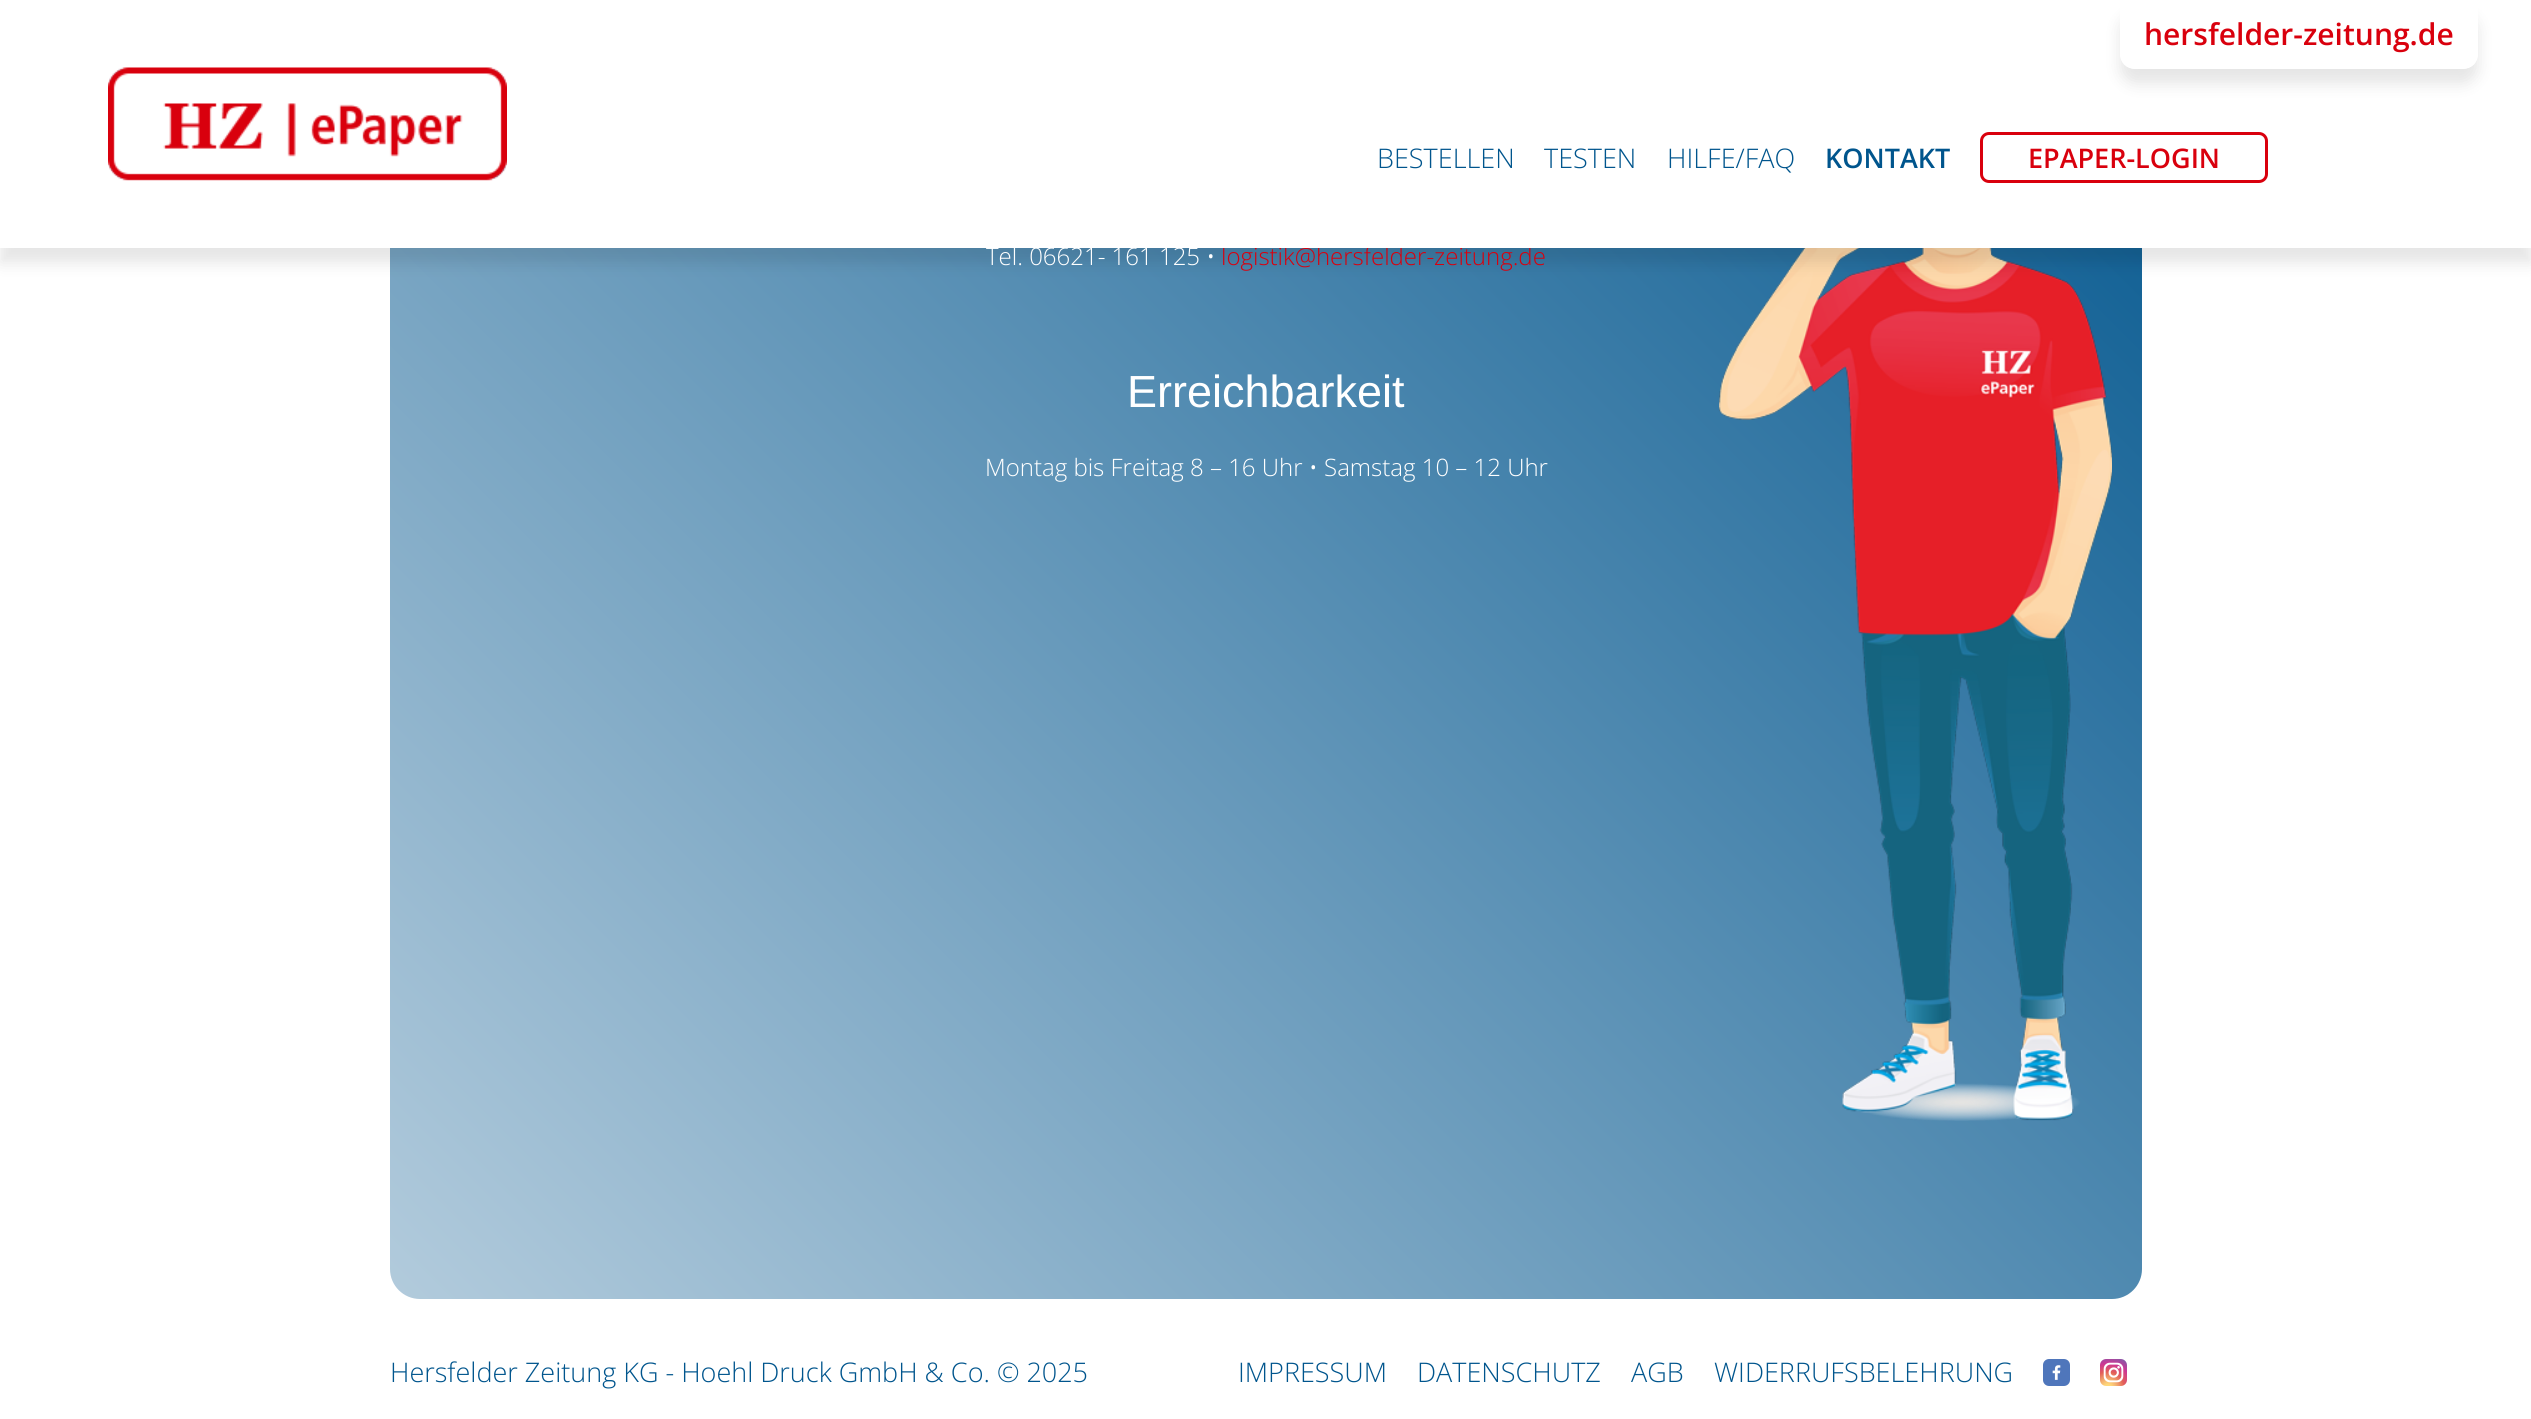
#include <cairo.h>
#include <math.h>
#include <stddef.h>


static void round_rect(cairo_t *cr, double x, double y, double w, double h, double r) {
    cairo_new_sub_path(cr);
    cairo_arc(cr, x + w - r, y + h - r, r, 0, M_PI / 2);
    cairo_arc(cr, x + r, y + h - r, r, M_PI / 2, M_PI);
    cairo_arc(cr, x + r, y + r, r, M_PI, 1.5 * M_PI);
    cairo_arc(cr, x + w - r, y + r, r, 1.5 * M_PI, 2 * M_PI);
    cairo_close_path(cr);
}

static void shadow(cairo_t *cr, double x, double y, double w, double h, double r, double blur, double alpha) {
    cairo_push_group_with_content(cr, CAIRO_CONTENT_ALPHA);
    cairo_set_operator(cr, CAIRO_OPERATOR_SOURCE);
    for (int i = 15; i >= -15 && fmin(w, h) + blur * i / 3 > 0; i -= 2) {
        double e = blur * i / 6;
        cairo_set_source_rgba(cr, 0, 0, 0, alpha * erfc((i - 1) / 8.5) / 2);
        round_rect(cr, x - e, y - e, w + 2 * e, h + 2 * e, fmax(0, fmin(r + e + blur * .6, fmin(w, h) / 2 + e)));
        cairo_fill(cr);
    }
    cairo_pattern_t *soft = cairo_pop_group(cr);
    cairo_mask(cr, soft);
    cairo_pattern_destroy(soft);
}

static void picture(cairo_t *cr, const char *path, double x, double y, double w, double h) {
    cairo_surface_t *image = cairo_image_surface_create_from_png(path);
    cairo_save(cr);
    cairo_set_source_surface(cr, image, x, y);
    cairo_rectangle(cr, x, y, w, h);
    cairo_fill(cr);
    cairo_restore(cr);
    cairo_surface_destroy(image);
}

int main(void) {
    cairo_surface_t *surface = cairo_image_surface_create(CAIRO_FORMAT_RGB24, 2531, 1419);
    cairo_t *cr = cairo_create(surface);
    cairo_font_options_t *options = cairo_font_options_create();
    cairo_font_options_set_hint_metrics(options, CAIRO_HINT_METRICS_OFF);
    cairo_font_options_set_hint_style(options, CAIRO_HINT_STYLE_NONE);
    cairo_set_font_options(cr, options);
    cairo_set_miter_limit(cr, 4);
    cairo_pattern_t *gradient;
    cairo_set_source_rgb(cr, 1, 1, 1);
    cairo_paint(cr);
    gradient = cairo_pattern_create_linear(473, 1382, 2059, -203);
    cairo_pattern_add_color_stop_rgba(gradient, 0, 0.698, 0.796, 0.863, 1);
    cairo_pattern_add_color_stop_rgba(gradient, 1, 0, 0.333, 0.553, 1);
    cairo_set_source(cr, gradient);
    cairo_pattern_destroy(gradient);
    round_rect(cr, 390, -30, 1752, 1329, 30);
    cairo_fill(cr);
    picture(cr, "img2.png", 1719, 248, 393, 873);
    cairo_set_source_rgb(cr, 0, 0, 0);
    shadow(cr, 0, 15, 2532, 248, 0, 7.5, 0.1);
    cairo_select_font_face(cr, "Open Sans Light", CAIRO_FONT_SLANT_NORMAL, CAIRO_FONT_WEIGHT_NORMAL);
    cairo_set_font_size(cr, 24);
    cairo_set_source_rgb(cr, 0.851, 0, 0.051);
    cairo_move_to(cr, 1221, 265);
    cairo_show_text(cr, "logistik@hersfelder-zeitung.de");
    cairo_set_source_rgb(cr, 1, 1, 1);
    cairo_rectangle(cr, 0, 0, 2531, 248);
    cairo_fill(cr);
    cairo_save(cr);
    cairo_set_fill_rule(cr, CAIRO_FILL_RULE_EVEN_ODD);
    cairo_new_path(cr);
    cairo_move_to(cr, 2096, 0);
    cairo_line_to(cr, 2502, 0);
    cairo_line_to(cr, 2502, 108);
    cairo_line_to(cr, 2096, 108);
    cairo_close_path(cr);
    cairo_move_to(cr, 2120, 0);
    cairo_line_to(cr, 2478, 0);
    cairo_line_to(cr, 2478, 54);
    cairo_curve_to(cr, 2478, 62.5, 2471.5, 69, 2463, 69);
    cairo_line_to(cr, 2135, 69);
    cairo_curve_to(cr, 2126.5, 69, 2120, 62.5, 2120, 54);
    cairo_close_path(cr);
    cairo_clip(cr);
    cairo_set_source_rgb(cr, 0, 0, 0);
    shadow(cr, 2120, 15, 358, 69, 15, 7.5, 0.1);
    cairo_restore(cr);
    cairo_select_font_face(cr, "Open Sans SemiBold", CAIRO_FONT_SLANT_NORMAL, CAIRO_FONT_WEIGHT_NORMAL);
    cairo_set_font_size(cr, 30);
    cairo_set_source_rgb(cr, 0.851, 0, 0.051);
    cairo_move_to(cr, 2144, 45);
    cairo_show_text(cr, "hersfelder-zeitung.de");
    picture(cr, "img1.png", 108, 67, 399, 114);
    cairo_select_font_face(cr, "Open Sans Light", CAIRO_FONT_SLANT_NORMAL, CAIRO_FONT_WEIGHT_NORMAL);
    cairo_set_font_size(cr, 27);
    cairo_set_source_rgb(cr, 0, 0.333, 0.553);
    cairo_move_to(cr, 1377, 168);
    cairo_show_text(cr, "BESTELLEN");
    cairo_move_to(cr, 1544, 168);
    cairo_show_text(cr, "TESTEN");
    cairo_move_to(cr, 1667, 168);
    cairo_show_text(cr, "HILFE/FAQ");
    cairo_select_font_face(cr, "Open Sans SemiBold", CAIRO_FONT_SLANT_NORMAL, CAIRO_FONT_WEIGHT_NORMAL);
    cairo_move_to(cr, 1825, 168);
    cairo_show_text(cr, "KONTAKT");
    round_rect(cr, 1981.5, 133.5, 285, 48, 7.5);
    cairo_set_source_rgb(cr, 0.851, 0, 0.051);
    cairo_set_line_width(cr, 3);
    cairo_stroke(cr);
    cairo_move_to(cr, 2028, 168);
    cairo_show_text(cr, "EPAPER-LOGIN");
    cairo_select_font_face(cr, "Open Sans Light", CAIRO_FONT_SLANT_NORMAL, CAIRO_FONT_WEIGHT_NORMAL);
    cairo_set_font_size(cr, 24);
    cairo_set_source_rgb(cr, 1, 1, 1);
    cairo_move_to(cr, 986, 265);
    cairo_show_text(cr, "Tel. 06621- 161 125 •");
    cairo_select_font_face(cr, "Liberation Sans", CAIRO_FONT_SLANT_NORMAL, CAIRO_FONT_WEIGHT_NORMAL);
    cairo_set_font_size(cr, 45);
    cairo_move_to(cr, 1127, 407);
    cairo_show_text(cr, "Erreichbarkeit");
    cairo_select_font_face(cr, "Open Sans Light", CAIRO_FONT_SLANT_NORMAL, CAIRO_FONT_WEIGHT_NORMAL);
    cairo_set_font_size(cr, 24);
    cairo_move_to(cr, 985, 476);
    cairo_show_text(cr, "Montag bis Freitag 8 – 16 Uhr • Samstag 10 – 12 Uhr");
    cairo_set_font_size(cr, 27);
    cairo_set_source_rgb(cr, 0, 0.333, 0.553);
    cairo_move_to(cr, 390, 1382);
    cairo_show_text(cr, "Hersfelder Zeitung KG - Hoehl Druck GmbH & Co. © 2025");
    cairo_move_to(cr, 1238, 1382);
    cairo_show_text(cr, "IMPRESSUM");
    cairo_move_to(cr, 1417, 1382);
    cairo_show_text(cr, "DATENSCHUTZ");
    cairo_move_to(cr, 1631, 1382);
    cairo_show_text(cr, "AGB");
    cairo_move_to(cr, 1714, 1382);
    cairo_show_text(cr, "WIDERRUFSBELEHRUNG");
    picture(cr, "img3.png", 2043, 1359, 27, 27);
    picture(cr, "img4.png", 2100, 1359, 27, 27);
    cairo_surface_write_to_png(surface, "page.png");
    cairo_font_options_destroy(options);
    cairo_destroy(cr);
    cairo_surface_destroy(surface);
    return 0;
}
